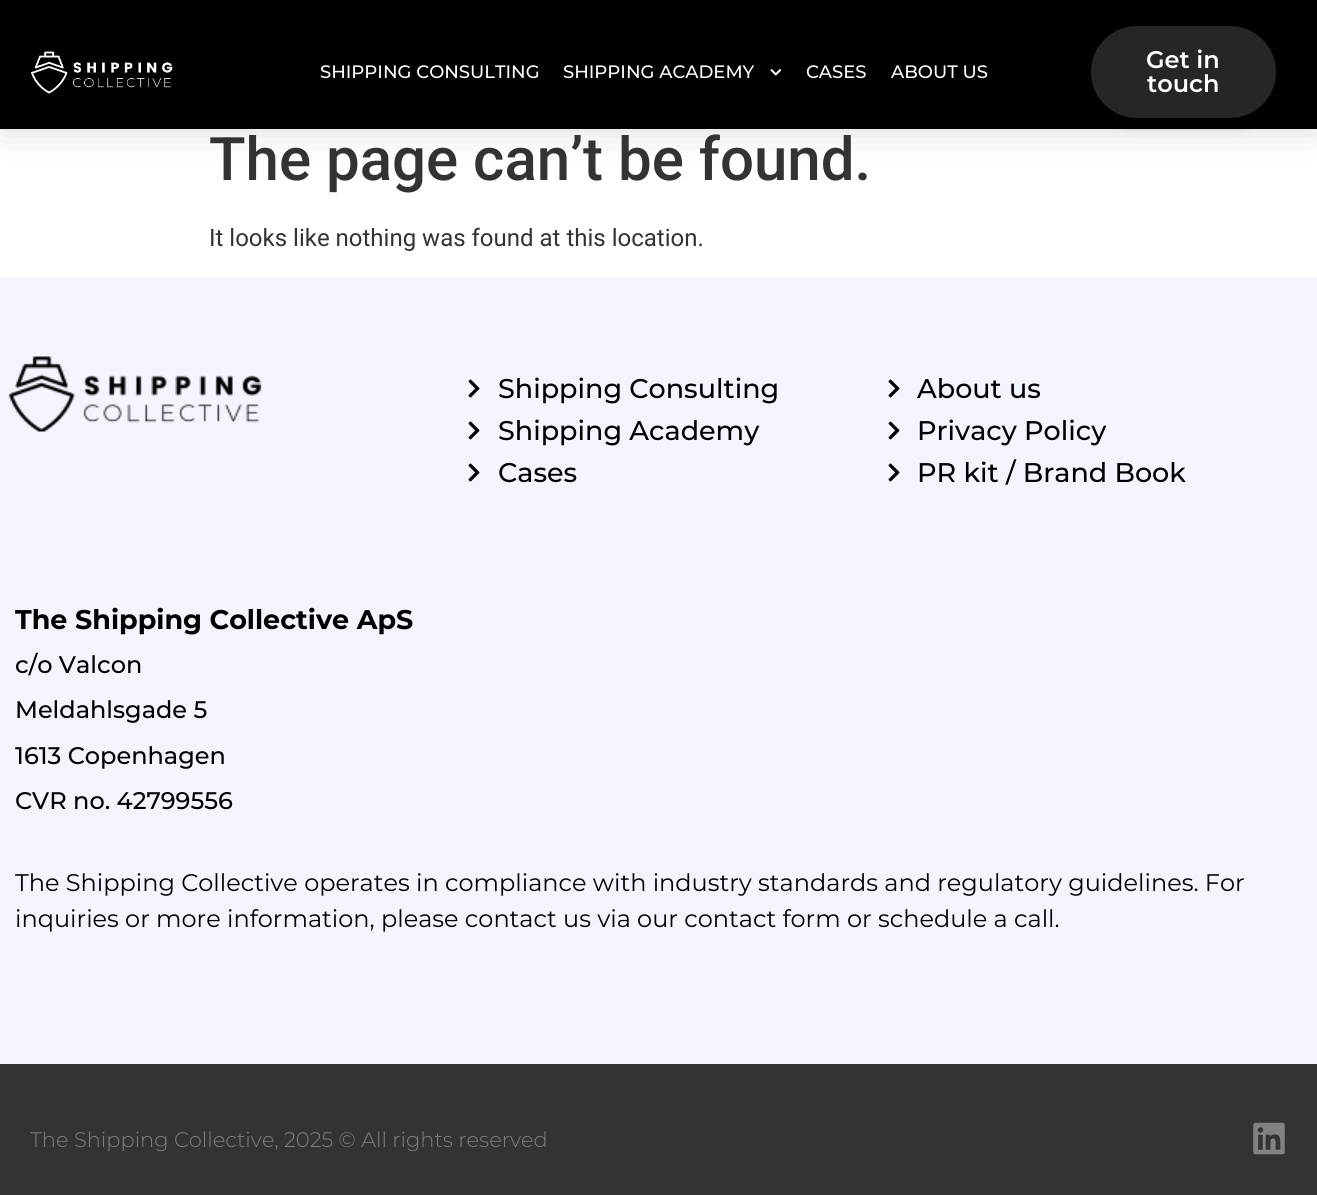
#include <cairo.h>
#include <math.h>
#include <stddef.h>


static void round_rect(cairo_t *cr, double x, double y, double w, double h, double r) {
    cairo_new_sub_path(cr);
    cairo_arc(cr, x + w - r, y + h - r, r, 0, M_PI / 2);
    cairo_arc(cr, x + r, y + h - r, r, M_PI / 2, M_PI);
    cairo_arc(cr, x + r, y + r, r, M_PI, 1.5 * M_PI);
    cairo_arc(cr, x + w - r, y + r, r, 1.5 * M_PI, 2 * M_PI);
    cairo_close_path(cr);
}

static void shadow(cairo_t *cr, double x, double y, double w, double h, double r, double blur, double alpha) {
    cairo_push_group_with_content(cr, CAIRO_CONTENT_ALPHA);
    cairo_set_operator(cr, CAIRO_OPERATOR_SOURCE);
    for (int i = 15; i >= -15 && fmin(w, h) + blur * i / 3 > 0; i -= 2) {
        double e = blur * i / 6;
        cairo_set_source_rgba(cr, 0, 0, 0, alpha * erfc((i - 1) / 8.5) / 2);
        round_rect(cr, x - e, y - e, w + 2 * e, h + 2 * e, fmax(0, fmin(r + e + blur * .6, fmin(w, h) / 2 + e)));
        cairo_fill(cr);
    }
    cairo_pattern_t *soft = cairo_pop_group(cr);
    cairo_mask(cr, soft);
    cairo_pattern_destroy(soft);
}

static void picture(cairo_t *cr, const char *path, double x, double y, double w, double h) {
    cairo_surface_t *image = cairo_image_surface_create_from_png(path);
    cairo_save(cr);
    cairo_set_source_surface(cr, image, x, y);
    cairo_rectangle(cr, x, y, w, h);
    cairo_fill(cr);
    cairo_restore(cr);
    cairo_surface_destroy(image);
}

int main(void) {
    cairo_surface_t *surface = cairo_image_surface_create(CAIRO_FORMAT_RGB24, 1317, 1195);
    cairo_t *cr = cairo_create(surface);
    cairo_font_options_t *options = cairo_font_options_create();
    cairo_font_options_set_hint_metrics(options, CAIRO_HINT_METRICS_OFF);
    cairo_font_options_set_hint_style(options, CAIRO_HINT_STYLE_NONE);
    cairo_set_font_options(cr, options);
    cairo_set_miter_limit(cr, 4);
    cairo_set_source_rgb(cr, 1, 1, 1);
    cairo_paint(cr);
    cairo_set_source_rgb(cr, 0, 0, 0);
    shadow(cr, 0, 0, 1317, 129, 0, 18, 0.15);
    cairo_set_source_rgb(cr, 0, 0, 0);
    cairo_rectangle(cr, 0, 0, 1317, 129);
    cairo_fill(cr);
    picture(cr, "img1.png", 30, 51, 143, 43);
    cairo_select_font_face(cr, "Montserrat Medium", CAIRO_FONT_SLANT_NORMAL, CAIRO_FONT_WEIGHT_NORMAL);
    cairo_set_font_size(cr, 18);
    cairo_set_source_rgb(cr, 1, 1, 1);
    cairo_move_to(cr, 320, 78);
    cairo_show_text(cr, "SHIPPING CONSULTING");
    cairo_move_to(cr, 563, 78);
    cairo_show_text(cr, "SHIPPING ACADEMY");
    picture(cr, "img2.png", 770, 69, 12, 7);
    cairo_move_to(cr, 806, 78);
    cairo_show_text(cr, "CASES");
    cairo_move_to(cr, 891, 78);
    cairo_show_text(cr, "ABOUT US");
    cairo_set_source_rgb(cr, 0, 0, 0);
    shadow(cr, 1089, 24, 189, 96, 48, 7.5, 0.5);
    cairo_set_source_rgb(cr, 0.145, 0.153, 0.153);
    round_rect(cr, 1090, 25, 187, 94, 47);
    cairo_fill_preserve(cr);
    cairo_set_source_rgb(cr, 0, 0, 0);
    cairo_stroke(cr);
    cairo_select_font_face(cr, "Montserrat SemiBold", CAIRO_FONT_SLANT_NORMAL, CAIRO_FONT_WEIGHT_NORMAL);
    cairo_set_font_size(cr, 24);
    cairo_set_source_rgb(cr, 1, 1, 1);
    cairo_move_to(cr, 1146, 68);
    cairo_show_text(cr, "Get in");
    cairo_move_to(cr, 1147, 92);
    cairo_show_text(cr, "touch");
    cairo_select_font_face(cr, "Roboto Medium", CAIRO_FONT_SLANT_NORMAL, CAIRO_FONT_WEIGHT_NORMAL);
    cairo_set_font_size(cr, 60);
    cairo_set_source_rgb(cr, 0.2, 0.2, 0.2);
    cairo_move_to(cr, 209, 180);
    cairo_show_text(cr, "The page can’t be found.");
    cairo_select_font_face(cr, "Roboto", CAIRO_FONT_SLANT_NORMAL, CAIRO_FONT_WEIGHT_NORMAL);
    cairo_set_font_size(cr, 24);
    cairo_move_to(cr, 209, 246);
    cairo_show_text(cr, "It looks like nothing was found at this location.");
    cairo_set_source_rgb(cr, 0.957, 0.957, 1);
    cairo_rectangle(cr, 0, 278, 1317, 786);
    cairo_fill(cr);
    picture(cr, "img3.png", 8, 356, 254, 76);
    picture(cr, "img4.png", 468, 379, 12, 19);
    cairo_select_font_face(cr, "Montserrat Medium", CAIRO_FONT_SLANT_NORMAL, CAIRO_FONT_WEIGHT_NORMAL);
    cairo_set_font_size(cr, 27);
    cairo_set_source_rgb(cr, 0, 0, 0);
    cairo_move_to(cr, 498, 398);
    cairo_show_text(cr, "Shipping Consulting");
    picture(cr, "img4.png", 468, 421, 12, 19);
    cairo_move_to(cr, 498, 440);
    cairo_show_text(cr, "Shipping Academy");
    picture(cr, "img4.png", 468, 463, 12, 19);
    cairo_move_to(cr, 498, 482);
    cairo_show_text(cr, "Cases");
    picture(cr, "img4.png", 888, 379, 12, 19);
    cairo_move_to(cr, 917, 398);
    cairo_show_text(cr, "About us");
    picture(cr, "img4.png", 888, 421, 12, 19);
    cairo_move_to(cr, 917, 440);
    cairo_show_text(cr, "Privacy Policy");
    picture(cr, "img4.png", 888, 463, 12, 19);
    cairo_move_to(cr, 917, 482);
    cairo_show_text(cr, "PR kit / Brand Book");
    cairo_select_font_face(cr, "Montserrat", CAIRO_FONT_SLANT_NORMAL, CAIRO_FONT_WEIGHT_BOLD);
    cairo_move_to(cr, 15, 629);
    cairo_show_text(cr, "The Shipping Collective ApS");
    cairo_select_font_face(cr, "Montserrat Medium", CAIRO_FONT_SLANT_NORMAL, CAIRO_FONT_WEIGHT_NORMAL);
    cairo_set_font_size(cr, 24);
    cairo_move_to(cr, 15, 673);
    cairo_show_text(cr, "c/o Valcon");
    cairo_move_to(cr, 15, 718);
    cairo_show_text(cr, "Meldahlsgade 5");
    cairo_move_to(cr, 15, 764);
    cairo_show_text(cr, "1613 Copenhagen");
    cairo_move_to(cr, 15, 809);
    cairo_show_text(cr, "CVR no. 42799556");
    cairo_select_font_face(cr, "Montserrat", CAIRO_FONT_SLANT_NORMAL, CAIRO_FONT_WEIGHT_NORMAL);
    cairo_move_to(cr, 15, 891);
    cairo_show_text(cr, "The Shipping Collective operates in compliance with industry standards and regulatory guidelines. For");
    cairo_move_to(cr, 15, 927);
    cairo_show_text(cr, "inquiries or more information, please contact us via our contact form or schedule a call.");
    cairo_set_source_rgb(cr, 0.2, 0.2, 0.2);
    cairo_rectangle(cr, 0, 1064, 1317, 131);
    cairo_fill(cr);
    cairo_select_font_face(cr, "Montserrat Light", CAIRO_FONT_SLANT_NORMAL, CAIRO_FONT_WEIGHT_NORMAL);
    cairo_set_font_size(cr, 21);
    cairo_set_source_rgb(cr, 0.494, 0.494, 0.494);
    cairo_move_to(cr, 30, 1147);
    cairo_show_text(cr, "The Shipping Collective, 2025 © All rights reserved");
    picture(cr, "img5.png", 1253, 1122, 32, 33);
    cairo_surface_write_to_png(surface, "page.png");
    cairo_font_options_destroy(options);
    cairo_destroy(cr);
    cairo_surface_destroy(surface);
    return 0;
}
